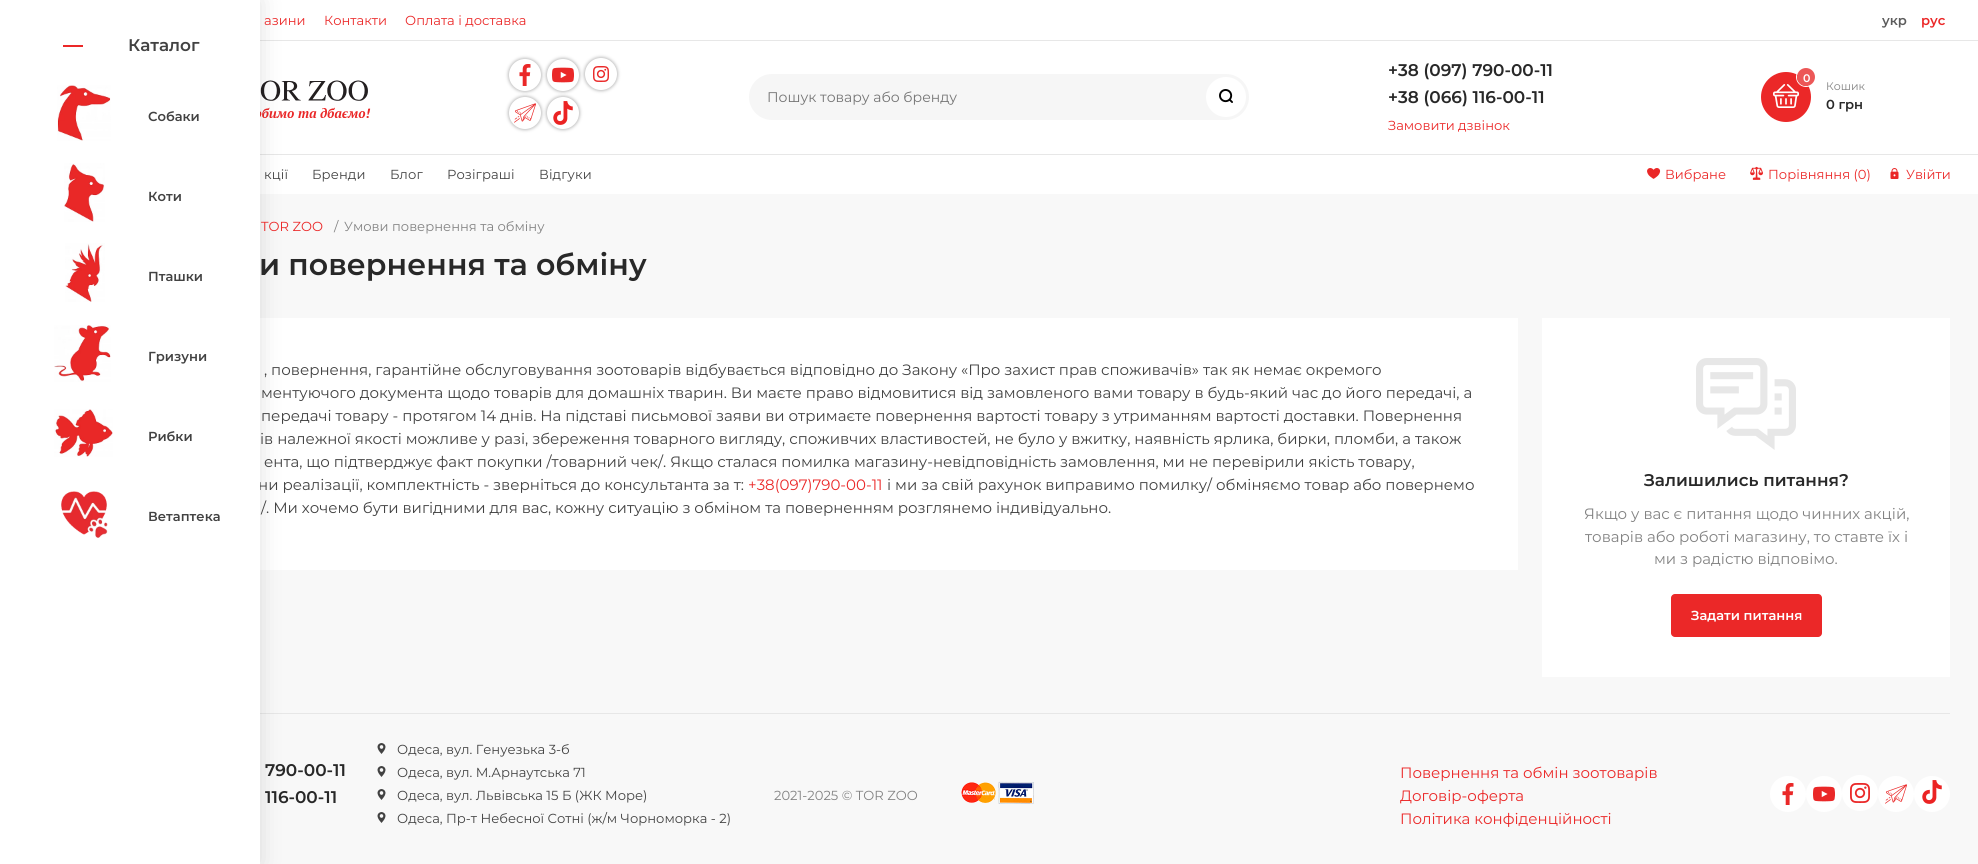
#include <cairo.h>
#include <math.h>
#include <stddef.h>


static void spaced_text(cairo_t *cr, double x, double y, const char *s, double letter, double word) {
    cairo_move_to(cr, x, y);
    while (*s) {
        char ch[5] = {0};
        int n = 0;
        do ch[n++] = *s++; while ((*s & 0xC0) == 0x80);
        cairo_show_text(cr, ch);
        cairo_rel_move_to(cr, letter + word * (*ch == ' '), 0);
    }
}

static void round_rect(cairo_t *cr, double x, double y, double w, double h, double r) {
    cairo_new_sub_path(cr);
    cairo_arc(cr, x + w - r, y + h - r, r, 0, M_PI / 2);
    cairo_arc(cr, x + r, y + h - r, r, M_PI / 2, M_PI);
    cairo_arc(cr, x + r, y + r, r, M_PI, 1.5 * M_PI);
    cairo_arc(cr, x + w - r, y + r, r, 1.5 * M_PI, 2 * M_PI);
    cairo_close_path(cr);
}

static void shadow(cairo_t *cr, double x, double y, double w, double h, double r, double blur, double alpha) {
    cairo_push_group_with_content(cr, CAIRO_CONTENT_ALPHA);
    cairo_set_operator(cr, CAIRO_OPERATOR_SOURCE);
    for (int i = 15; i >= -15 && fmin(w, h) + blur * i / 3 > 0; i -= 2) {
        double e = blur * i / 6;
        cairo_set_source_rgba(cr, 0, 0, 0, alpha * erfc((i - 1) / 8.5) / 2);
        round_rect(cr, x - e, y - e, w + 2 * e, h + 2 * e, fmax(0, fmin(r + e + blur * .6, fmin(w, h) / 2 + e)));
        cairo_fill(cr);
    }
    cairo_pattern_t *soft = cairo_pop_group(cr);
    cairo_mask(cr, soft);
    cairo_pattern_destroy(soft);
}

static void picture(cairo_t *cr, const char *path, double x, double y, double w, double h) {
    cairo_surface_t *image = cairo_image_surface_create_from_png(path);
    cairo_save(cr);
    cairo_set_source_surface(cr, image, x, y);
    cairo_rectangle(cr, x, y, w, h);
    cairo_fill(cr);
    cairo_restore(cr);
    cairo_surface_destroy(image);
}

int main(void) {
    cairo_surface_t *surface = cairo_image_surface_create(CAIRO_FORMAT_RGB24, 1978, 864);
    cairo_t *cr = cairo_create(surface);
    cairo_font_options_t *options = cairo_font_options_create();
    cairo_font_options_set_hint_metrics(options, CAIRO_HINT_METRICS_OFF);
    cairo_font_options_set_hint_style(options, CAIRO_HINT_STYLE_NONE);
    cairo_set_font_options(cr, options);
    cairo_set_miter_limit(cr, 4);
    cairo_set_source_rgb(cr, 0.969, 0.969, 0.969);
    cairo_paint(cr);
    cairo_set_source_rgb(cr, 1, 1, 1);
    cairo_rectangle(cr, 260, 0, 1718, 194);
    cairo_fill(cr);
    cairo_set_source_rgb(cr, 0.906, 0.906, 0.906);
    cairo_rectangle(cr, 260, 40, 1718, 1);
    cairo_fill(cr);
    cairo_rectangle(cr, 260, 154, 1718, 1);
    cairo_fill(cr);
    picture(cr, "img7.png", 260, 80, 111, 38);
    cairo_set_source_rgb(cr, 1, 1, 1);
    cairo_rectangle(cr, 260, 318, 1258, 252);
    cairo_fill(cr);
    cairo_set_source_rgb(cr, 0.906, 0.906, 0.906);
    cairo_rectangle(cr, 260, 713, 1690, 1);
    cairo_fill(cr);
    cairo_set_source_rgb(cr, 0, 0, 0);
    shadow(cr, 0, 0, 260, 864, 0, 12, 0.12);
    cairo_select_font_face(cr, "Montserrat", CAIRO_FONT_SLANT_NORMAL, CAIRO_FONT_WEIGHT_NORMAL);
    cairo_set_font_size(cr, 15);
    cairo_set_source_rgb(cr, 0.259, 0.259, 0.259);
    cairo_move_to(cr, 258, 490);
    cairo_show_text(cr, "ни реалізації, комплектність - зверніться до консультанта за т:");
    cairo_set_source_rgb(cr, 1, 1, 1);
    cairo_rectangle(cr, 0, 0, 260, 864);
    cairo_fill(cr);
    cairo_set_source_rgb(cr, 0.918, 0.157, 0.157);
    cairo_rectangle(cr, 63, 45, 20, 2);
    cairo_fill(cr);
    cairo_select_font_face(cr, "Montserrat SemiBold", CAIRO_FONT_SLANT_NORMAL, CAIRO_FONT_WEIGHT_NORMAL);
    cairo_set_font_size(cr, 16.9);
    cairo_set_source_rgb(cr, 0.259, 0.259, 0.259);
    cairo_move_to(cr, 128, 51);
    cairo_show_text(cr, "Каталог");
    picture(cr, "img1.png", 57, 85, 54, 56);
    cairo_set_font_size(cr, 13.1);
    cairo_move_to(cr, 148, 121);
    cairo_show_text(cr, "Собаки");
    picture(cr, "img2.png", 64, 163, 41, 59);
    cairo_move_to(cr, 148, 201);
    cairo_show_text(cr, "Коти");
    picture(cr, "img3.png", 65, 243, 40, 59);
    cairo_move_to(cr, 148, 281);
    cairo_show_text(cr, "Пташки");
    picture(cr, "img4.png", 54, 325, 57, 57);
    cairo_move_to(cr, 148, 361);
    cairo_show_text(cr, "Гризуни");
    picture(cr, "img5.png", 54, 409, 59, 48);
    cairo_move_to(cr, 148, 441);
    cairo_show_text(cr, "Рибки");
    picture(cr, "img6.png", 61, 491, 47, 47);
    cairo_move_to(cr, 148, 521);
    cairo_show_text(cr, "Ветаптека");
    cairo_select_font_face(cr, "Montserrat", CAIRO_FONT_SLANT_NORMAL, CAIRO_FONT_WEIGHT_NORMAL);
    cairo_set_source_rgb(cr, 0.918, 0.157, 0.157);
    cairo_move_to(cr, 264, 25);
    cairo_show_text(cr, "азини");
    cairo_move_to(cr, 324, 25);
    cairo_show_text(cr, "Контакти");
    cairo_move_to(cr, 405, 25);
    cairo_show_text(cr, "Оплата і доставка");
    cairo_select_font_face(cr, "Montserrat SemiBold", CAIRO_FONT_SLANT_NORMAL, CAIRO_FONT_WEIGHT_NORMAL);
    cairo_set_source_rgb(cr, 0.361, 0.361, 0.361);
    cairo_move_to(cr, 1882, 25);
    cairo_show_text(cr, "укр");
    cairo_set_source_rgb(cr, 0.918, 0.157, 0.157);
    cairo_move_to(cr, 1921, 25);
    cairo_show_text(cr, "рус");
    cairo_set_source_rgb(cr, 0.749, 0.749, 0.749);
    shadow(cr, 508, 58, 34, 34, 17, 1.5, 1);
    cairo_set_source_rgb(cr, 1, 1, 1);
    cairo_arc(cr, 525, 75, 16, 0, 2 * M_PI);
    cairo_fill(cr);
    picture(cr, "img8.png", 519, 64, 12, 22);
    cairo_set_source_rgb(cr, 0.749, 0.749, 0.749);
    shadow(cr, 546, 58, 34, 34, 17, 1.5, 1);
    cairo_set_source_rgb(cr, 1, 1, 1);
    cairo_arc(cr, 563, 75, 16, 0, 2 * M_PI);
    cairo_fill(cr);
    picture(cr, "img9.png", 552, 67, 22, 16);
    cairo_set_source_rgb(cr, 0.749, 0.749, 0.749);
    shadow(cr, 584, 57, 34, 34, 17, 1.5, 1);
    cairo_set_source_rgb(cr, 1, 1, 1);
    cairo_arc(cr, 601, 74, 16, 0, 2 * M_PI);
    cairo_fill(cr);
    picture(cr, "img10.png", 593, 66, 16, 16);
    cairo_set_source_rgb(cr, 0.749, 0.749, 0.749);
    shadow(cr, 508, 96, 34, 34, 17, 1.5, 1);
    cairo_set_source_rgb(cr, 1, 1, 1);
    cairo_arc(cr, 525, 113, 16, 0, 2 * M_PI);
    cairo_fill(cr);
    picture(cr, "img11.png", 514, 103, 22, 20);
    cairo_set_source_rgb(cr, 0.749, 0.749, 0.749);
    shadow(cr, 546, 96, 34, 34, 17, 1.5, 1);
    cairo_set_source_rgb(cr, 1, 1, 1);
    cairo_arc(cr, 563, 113, 16, 0, 2 * M_PI);
    cairo_fill(cr);
    picture(cr, "img12.png", 553, 101, 20, 24);
    cairo_set_source_rgb(cr, 0.961, 0.961, 0.961);
    round_rect(cr, 749, 74, 500, 46, 23);
    cairo_fill(cr);
    cairo_select_font_face(cr, "Montserrat", CAIRO_FONT_SLANT_NORMAL, CAIRO_FONT_WEIGHT_NORMAL);
    cairo_set_font_size(cr, 14);
    cairo_set_source_rgb(cr, 0.459, 0.459, 0.459);
    cairo_move_to(cr, 767, 102);
    cairo_show_text(cr, "Пошук товару або бренду");
    cairo_set_source_rgb(cr, 1, 1, 1);
    cairo_new_path(cr);
    cairo_arc(cr, 1226, 97, 20, 0, 2 * M_PI);
    cairo_fill(cr);
    picture(cr, "img13.png", 1219, 89, 14, 14);
    cairo_select_font_face(cr, "Montserrat SemiBold", CAIRO_FONT_SLANT_NORMAL, CAIRO_FONT_WEIGHT_NORMAL);
    cairo_set_font_size(cr, 16.9);
    cairo_set_source_rgb(cr, 0.157, 0.157, 0.157);
    cairo_move_to(cr, 1388, 76);
    cairo_show_text(cr, "+38 (097) 790-00-11");
    cairo_move_to(cr, 1388, 103);
    cairo_show_text(cr, "+38 (066) 116-00-11");
    cairo_select_font_face(cr, "Montserrat", CAIRO_FONT_SLANT_NORMAL, CAIRO_FONT_WEIGHT_NORMAL);
    cairo_set_font_size(cr, 13.1);
    cairo_set_source_rgb(cr, 0.918, 0.157, 0.157);
    cairo_move_to(cr, 1388, 130);
    cairo_show_text(cr, "Замовити дзвінок");
    cairo_new_path(cr);
    cairo_arc(cr, 1786, 97, 25, 0, 2 * M_PI);
    cairo_fill(cr);
    picture(cr, "img14.png", 1773, 84, 26, 24);
    cairo_arc(cr, 1806, 77, 9.5, 0, 2 * M_PI);
    cairo_set_source_rgb(cr, 1, 1, 1);
    cairo_set_line_width(cr, 1);
    cairo_stroke(cr);
    cairo_set_source_rgb(cr, 0.922, 0.341, 0.341);
    cairo_arc(cr, 1806, 77, 9, 0, 2 * M_PI);
    cairo_fill(cr);
    cairo_select_font_face(cr, "Montserrat SemiBold", CAIRO_FONT_SLANT_NORMAL, CAIRO_FONT_WEIGHT_NORMAL);
    cairo_set_font_size(cr, 11);
    cairo_set_source_rgb(cr, 1, 1, 1);
    cairo_move_to(cr, 1803, 82);
    cairo_show_text(cr, "0");
    cairo_select_font_face(cr, "Montserrat", CAIRO_FONT_SLANT_NORMAL, CAIRO_FONT_WEIGHT_NORMAL);
    cairo_set_source_rgb(cr, 0.51, 0.51, 0.51);
    cairo_move_to(cr, 1826, 90);
    cairo_show_text(cr, "Кошик");
    cairo_select_font_face(cr, "Montserrat SemiBold", CAIRO_FONT_SLANT_NORMAL, CAIRO_FONT_WEIGHT_NORMAL);
    cairo_set_font_size(cr, 13.1);
    cairo_set_source_rgb(cr, 0.157, 0.157, 0.157);
    cairo_move_to(cr, 1826, 109);
    cairo_show_text(cr, "0 грн");
    cairo_select_font_face(cr, "Montserrat", CAIRO_FONT_SLANT_NORMAL, CAIRO_FONT_WEIGHT_NORMAL);
    cairo_set_source_rgb(cr, 0.259, 0.259, 0.259);
    spaced_text(cr, 264, 179, "кції", 0.1, 0);
    spaced_text(cr, 312, 179, "Бренди", 0.1, 0);
    spaced_text(cr, 390, 179, "Блог", 0.1, 0);
    spaced_text(cr, 447, 179, "Розіграші", 0.1, 0);
    spaced_text(cr, 539, 179, "Відгуки", 0.1, 0);
    picture(cr, "img15.png", 1647, 168, 14, 11);
    cairo_set_source_rgb(cr, 0.918, 0.157, 0.157);
    cairo_move_to(cr, 1665, 179);
    cairo_show_text(cr, "Вибране");
    picture(cr, "img16.png", 1750, 166, 13, 14);
    cairo_move_to(cr, 1768, 179);
    cairo_show_text(cr, "Порівняння (0)");
    picture(cr, "img17.png", 1890, 168, 9, 11);
    cairo_move_to(cr, 1906, 179);
    cairo_show_text(cr, "Увійти");
    cairo_move_to(cr, 261, 231);
    cairo_show_text(cr, "TOR ZOO");
    cairo_set_source_rgb(cr, 0.51, 0.51, 0.51);
    cairo_move_to(cr, 334, 231);
    cairo_show_text(cr, "/");
    cairo_move_to(cr, 344, 231);
    cairo_show_text(cr, "Умови повернення та обміну");
    cairo_select_font_face(cr, "Montserrat SemiBold", CAIRO_FONT_SLANT_NORMAL, CAIRO_FONT_WEIGHT_NORMAL);
    cairo_set_font_size(cr, 30);
    cairo_set_source_rgb(cr, 0.157, 0.157, 0.157);
    cairo_move_to(cr, 259, 275);
    cairo_show_text(cr, "и повернення та обміну");
    cairo_select_font_face(cr, "Montserrat", CAIRO_FONT_SLANT_NORMAL, CAIRO_FONT_WEIGHT_NORMAL);
    cairo_set_font_size(cr, 15);
    cairo_set_source_rgb(cr, 0.259, 0.259, 0.259);
    cairo_move_to(cr, 264, 375);
    cairo_show_text(cr, ", повернення, гарантійне обслуговування зоотоварів відбувається відповідно до Закону «Про захист прав споживачів» так як немає окремого");
    cairo_move_to(cr, 261, 398);
    cairo_show_text(cr, "ментуючого документа щодо товарів для домашніх тварин. Ви маєте право відмовитися від замовленого вами товару в будь-який час до його передачі, а");
    cairo_move_to(cr, 261, 421);
    cairo_show_text(cr, "передачі товару - протягом 14 днів. На підставі письмової заяви ви отримаєте повернення вартості товару з утриманням вартості доставки. Повернення");
    cairo_move_to(cr, 260, 444);
    cairo_show_text(cr, "ів належної якості можливе у разі, збереження товарного вигляду, споживчих властивостей, не було у вжитку, наявність ярлика, бирки, пломби, а також");
    cairo_move_to(cr, 264, 467);
    cairo_show_text(cr, "ента, що підтверджує факт покупки /товарний чек/. Якщо сталася помилка магазину-невідповідність замовлення, ми не перевірили якість товару,");
    cairo_set_source_rgb(cr, 0.918, 0.157, 0.157);
    cairo_move_to(cr, 748, 490);
    cairo_show_text(cr, "+38(097)790-00-11");
    cairo_set_source_rgb(cr, 0.259, 0.259, 0.259);
    cairo_move_to(cr, 887, 490);
    cairo_show_text(cr, "і ми за свій рахунок виправимо помилку/ обміняємо товар або повернемо");
    cairo_move_to(cr, 261, 513);
    cairo_show_text(cr, "/. Ми хочемо бути вигідними для вас, кожну ситуацію з обміном та поверненням розглянемо індивідуально.");
    cairo_set_source_rgb(cr, 1, 1, 1);
    cairo_rectangle(cr, 1542, 318, 408, 359);
    cairo_fill(cr);
    picture(cr, "img18.png", 1696, 358, 100, 92);
    cairo_select_font_face(cr, "Montserrat SemiBold", CAIRO_FONT_SLANT_NORMAL, CAIRO_FONT_WEIGHT_NORMAL);
    cairo_set_font_size(cr, 16.9);
    cairo_set_source_rgb(cr, 0.157, 0.157, 0.157);
    cairo_move_to(cr, 1644, 486);
    cairo_show_text(cr, "Залишились питання?");
    cairo_select_font_face(cr, "Montserrat", CAIRO_FONT_SLANT_NORMAL, CAIRO_FONT_WEIGHT_NORMAL);
    cairo_set_font_size(cr, 15);
    cairo_set_source_rgb(cr, 0.51, 0.51, 0.51);
    cairo_move_to(cr, 1584, 519);
    cairo_show_text(cr, "Якщо у вас є питання щодо чинних акцій,");
    cairo_move_to(cr, 1585, 542);
    cairo_show_text(cr, "товарів або роботі магазину, то ставте їх і");
    cairo_move_to(cr, 1654, 564);
    cairo_show_text(cr, "ми з радістю відповімо.");
    cairo_set_source_rgb(cr, 0.918, 0.157, 0.157);
    round_rect(cr, 1671, 594, 151, 43, 4);
    cairo_fill(cr);
    cairo_select_font_face(cr, "Montserrat SemiBold", CAIRO_FONT_SLANT_NORMAL, CAIRO_FONT_WEIGHT_NORMAL);
    cairo_set_font_size(cr, 13.1);
    cairo_set_source_rgb(cr, 1, 1, 1);
    cairo_move_to(cr, 1691, 620);
    cairo_show_text(cr, "Задати питання");
    cairo_set_font_size(cr, 16.9);
    cairo_set_source_rgb(cr, 0.157, 0.157, 0.157);
    cairo_move_to(cr, 265, 776);
    cairo_show_text(cr, "790-00-11");
    cairo_move_to(cr, 265, 803);
    cairo_show_text(cr, "116-00-11");
    picture(cr, "img19.png", 377, 743, 9, 11);
    cairo_select_font_face(cr, "Montserrat", CAIRO_FONT_SLANT_NORMAL, CAIRO_FONT_WEIGHT_NORMAL);
    cairo_set_font_size(cr, 13.1);
    cairo_set_source_rgb(cr, 0.259, 0.259, 0.259);
    cairo_move_to(cr, 397, 754);
    cairo_show_text(cr, "Одеса, вул. Генуезька 3-б");
    picture(cr, "img19.png", 377, 766, 9, 11);
    cairo_move_to(cr, 397, 777);
    cairo_show_text(cr, "Одеса, вул. М.Арнаутська 71");
    picture(cr, "img19.png", 377, 789, 9, 11);
    cairo_move_to(cr, 397, 800);
    cairo_show_text(cr, "Одеса, вул. Львівська 15 Б (ЖК Море)");
    picture(cr, "img19.png", 377, 812, 9, 11);
    cairo_move_to(cr, 397, 823);
    cairo_show_text(cr, "Одеса, Пр-т Небесної Сотні (ж/м Чорноморка - 2)");
    cairo_set_source_rgb(cr, 0.51, 0.51, 0.51);
    cairo_move_to(cr, 774, 800);
    cairo_show_text(cr, "2021-2025 © TOR ZOO");
    picture(cr, "img20.png", 961, 781, 73, 23);
    cairo_set_font_size(cr, 15);
    cairo_set_source_rgb(cr, 0.918, 0.157, 0.157);
    cairo_move_to(cr, 1400, 778);
    cairo_show_text(cr, "Повернення та обмін зоотоварів");
    cairo_move_to(cr, 1400, 801);
    cairo_show_text(cr, "Договір-оферта");
    cairo_move_to(cr, 1400, 824);
    cairo_show_text(cr, "Політика конфіденційності");
    cairo_set_source_rgb(cr, 1, 1, 1);
    cairo_new_path(cr);
    cairo_arc(cr, 1788, 794, 18, 0, 2 * M_PI);
    cairo_fill(cr);
    picture(cr, "img8.png", 1782, 783, 12, 22);
    cairo_arc(cr, 1824, 794, 18, 0, 2 * M_PI);
    cairo_fill(cr);
    picture(cr, "img9.png", 1813, 786, 22, 16);
    cairo_arc(cr, 1860, 793, 18, 0, 2 * M_PI);
    cairo_fill(cr);
    picture(cr, "img21.png", 1850, 783, 20, 20);
    cairo_arc(cr, 1896, 794, 18, 0, 2 * M_PI);
    cairo_fill(cr);
    picture(cr, "img11.png", 1885, 784, 22, 20);
    cairo_arc(cr, 1932, 794, 18, 0, 2 * M_PI);
    cairo_fill(cr);
    picture(cr, "img12.png", 1922, 780, 20, 24);
    cairo_surface_write_to_png(surface, "page.png");
    cairo_font_options_destroy(options);
    cairo_destroy(cr);
    cairo_surface_destroy(surface);
    return 0;
}
